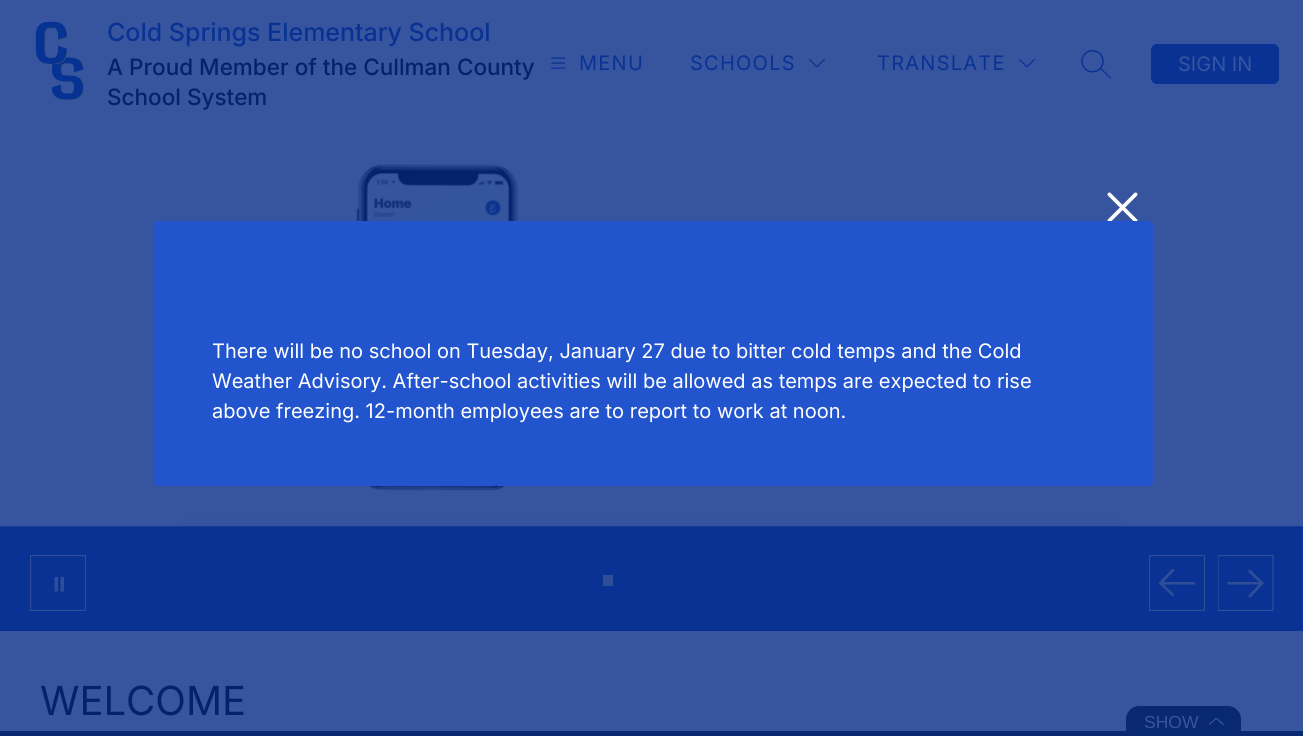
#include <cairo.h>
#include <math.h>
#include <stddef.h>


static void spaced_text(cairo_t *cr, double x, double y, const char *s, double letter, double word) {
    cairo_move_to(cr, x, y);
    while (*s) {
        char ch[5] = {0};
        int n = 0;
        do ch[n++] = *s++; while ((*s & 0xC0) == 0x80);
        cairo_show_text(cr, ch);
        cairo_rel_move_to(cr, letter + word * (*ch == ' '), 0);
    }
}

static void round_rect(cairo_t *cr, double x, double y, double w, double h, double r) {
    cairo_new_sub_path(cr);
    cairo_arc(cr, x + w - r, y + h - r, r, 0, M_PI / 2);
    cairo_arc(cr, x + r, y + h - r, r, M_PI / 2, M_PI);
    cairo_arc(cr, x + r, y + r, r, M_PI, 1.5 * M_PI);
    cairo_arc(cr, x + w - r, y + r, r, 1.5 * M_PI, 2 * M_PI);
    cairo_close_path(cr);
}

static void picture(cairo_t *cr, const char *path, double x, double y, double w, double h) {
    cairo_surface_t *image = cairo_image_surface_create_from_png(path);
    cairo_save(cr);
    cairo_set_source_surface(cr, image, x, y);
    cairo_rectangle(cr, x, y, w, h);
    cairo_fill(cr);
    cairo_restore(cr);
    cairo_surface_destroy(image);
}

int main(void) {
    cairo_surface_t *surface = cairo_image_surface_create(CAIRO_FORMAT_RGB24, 1303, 736);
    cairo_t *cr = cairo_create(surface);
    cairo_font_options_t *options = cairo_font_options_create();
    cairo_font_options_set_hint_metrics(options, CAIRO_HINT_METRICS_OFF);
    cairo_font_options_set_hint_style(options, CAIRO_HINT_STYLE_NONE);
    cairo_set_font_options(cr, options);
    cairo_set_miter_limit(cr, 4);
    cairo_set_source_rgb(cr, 0.212, 0.333, 0.62);
    cairo_paint(cr);
    picture(cr, "img1.png", 35, 21, 49, 79);
    cairo_select_font_face(cr, "Inter Medium", CAIRO_FONT_SLANT_NORMAL, CAIRO_FONT_WEIGHT_NORMAL);
    cairo_set_font_size(cr, 25);
    cairo_set_source_rgb(cr, 0.039, 0.196, 0.58);
    cairo_move_to(cr, 107, 41);
    cairo_show_text(cr, "Cold Springs Elementary School");
    cairo_set_font_size(cr, 22.5);
    cairo_set_source_rgb(cr, 0.012, 0.133, 0.42);
    cairo_move_to(cr, 107, 75);
    cairo_show_text(cr, "A Proud Member of the Cullman County");
    cairo_move_to(cr, 107, 105);
    cairo_show_text(cr, "School System");
    picture(cr, "img2.png", 551, 57, 14, 12);
    cairo_select_font_face(cr, "Inter", CAIRO_FONT_SLANT_NORMAL, CAIRO_FONT_WEIGHT_NORMAL);
    cairo_set_font_size(cr, 20);
    cairo_set_source_rgb(cr, 0.039, 0.196, 0.58);
    spaced_text(cr, 579, 70, "MENU", 1.25, 0);
    spaced_text(cr, 690, 70, "SCHOOLS", 1.25, 0);
    picture(cr, "img3.png", 808, 58, 17, 10);
    spaced_text(cr, 877, 70, "TRANSLATE", 1.25, 0);
    picture(cr, "img3.png", 1018, 58, 17, 10);
    picture(cr, "img4.png", 1081, 50, 30, 29);
    round_rect(cr, 1151.5, 44.5, 127, 39, 5.5);
    cairo_fill_preserve(cr);
    cairo_set_line_width(cr, 1);
    cairo_stroke(cr);
    cairo_set_source_rgb(cr, 0.212, 0.333, 0.62);
    cairo_move_to(cr, 1178, 71);
    cairo_show_text(cr, "SIGN IN");
    cairo_set_source_rgb(cr, 0.039, 0.196, 0.58);
    cairo_rectangle(cr, 0, 526, 1303, 105);
    cairo_fill(cr);
    picture(cr, "img6.png", 0, 123, 1303, 404);
    picture(cr, "img5.png", 1107, 192, 31, 29);
    cairo_set_source_rgb(cr, 0.133, 0.329, 0.808);
    round_rect(cr, 153, 221, 1000, 265, 5);
    cairo_fill(cr);
    cairo_set_source_rgb(cr, 1, 1, 1);
    cairo_move_to(cr, 212, 358);
    cairo_show_text(cr, "There will be no school on Tuesday, January 27 due to bitter cold temps and the Cold");
    cairo_move_to(cr, 212, 388);
    cairo_show_text(cr, "Weather Advisory. After-school activities will be allowed as temps are expected to rise");
    cairo_move_to(cr, 212, 418);
    cairo_show_text(cr, "above freezing. 12-month employees are to report to work at noon.");
    cairo_save(cr);
    cairo_rectangle(cr, 30, 555, 56, 56);
    cairo_clip(cr);
    cairo_new_path(cr);
    cairo_move_to(cr, 30.5, 555.5);
    cairo_line_to(cr, 85.5, 555.5);
    cairo_line_to(cr, 85.5, 610.5);
    cairo_line_to(cr, 30.5, 610.5);
    cairo_close_path(cr);
    cairo_set_source_rgb(cr, 0.188, 0.306, 0.596);
    cairo_set_line_width(cr, 1.2);
    cairo_stroke(cr);
    cairo_restore(cr);
    cairo_set_source_rgb(cr, 0.188, 0.306, 0.596);
    cairo_set_fill_rule(cr, CAIRO_FILL_RULE_EVEN_ODD);
    cairo_new_path(cr);
    cairo_move_to(cr, 58, 577);
    cairo_line_to(cr, 54.5, 577);
    cairo_line_to(cr, 54.5, 591.5);
    cairo_line_to(cr, 58, 591.5);
    cairo_close_path(cr);
    cairo_move_to(cr, 64, 577);
    cairo_line_to(cr, 60.5, 577);
    cairo_line_to(cr, 60.5, 591.5);
    cairo_line_to(cr, 64, 591.5);
    cairo_close_path(cr);
    cairo_fill(cr);
    cairo_rectangle(cr, 603, 575, 10, 11);
    cairo_fill(cr);
    cairo_save(cr);
    cairo_set_fill_rule(cr, CAIRO_FILL_RULE_WINDING);
    cairo_rectangle(cr, 1149, 555, 56, 56);
    cairo_clip(cr);
    cairo_new_path(cr);
    cairo_move_to(cr, 1204.5, 610.5);
    cairo_line_to(cr, 1149.5, 610.5);
    cairo_line_to(cr, 1149.5, 555.5);
    cairo_line_to(cr, 1204.5, 555.5);
    cairo_close_path(cr);
    cairo_set_line_width(cr, 1.2);
    cairo_stroke(cr);
    cairo_restore(cr);
    cairo_set_fill_rule(cr, CAIRO_FILL_RULE_WINDING);
    cairo_new_path(cr);
    cairo_move_to(cr, 1172.5, 596.5);
    cairo_line_to(cr, 1158.5, 583);
    cairo_line_to(cr, 1172.5, 568.5);
    cairo_line_to(cr, 1174.5, 570.5);
    cairo_line_to(cr, 1163.5, 582);
    cairo_line_to(cr, 1195, 582);
    cairo_line_to(cr, 1195, 584.5);
    cairo_line_to(cr, 1163.5, 584.5);
    cairo_line_to(cr, 1174.5, 594.5);
    cairo_close_path(cr);
    cairo_fill(cr);
    cairo_save(cr);
    cairo_rectangle(cr, 1218, 555, 56, 56);
    cairo_clip(cr);
    cairo_new_path(cr);
    cairo_move_to(cr, 1218, 555.5);
    cairo_line_to(cr, 1273, 555.5);
    cairo_line_to(cr, 1273, 610.5);
    cairo_line_to(cr, 1218, 610.5);
    cairo_close_path(cr);
    cairo_set_line_width(cr, 1.2);
    cairo_stroke(cr);
    cairo_restore(cr);
    cairo_new_path(cr);
    cairo_move_to(cr, 1250, 569.5);
    cairo_line_to(cr, 1264, 583);
    cairo_line_to(cr, 1250, 598);
    cairo_line_to(cr, 1248, 596);
    cairo_line_to(cr, 1259, 584.5);
    cairo_line_to(cr, 1227.5, 584.5);
    cairo_line_to(cr, 1227.5, 582);
    cairo_line_to(cr, 1259, 582);
    cairo_line_to(cr, 1248, 571.5);
    cairo_close_path(cr);
    cairo_fill(cr);
    cairo_set_font_size(cr, 40);
    cairo_set_source_rgb(cr, 0.012, 0.133, 0.42);
    cairo_move_to(cr, 40, 715);
    cairo_show_text(cr, "WELCOME");
    cairo_set_source_rgb(cr, 0.039, 0.157, 0.447);
    cairo_rectangle(cr, 0, 731, 1303, 5);
    cairo_fill(cr);
    cairo_new_path(cr);
    cairo_move_to(cr, 1139, 706);
    cairo_line_to(cr, 1228, 706);
    cairo_curve_to(cr, 1235, 706, 1241, 712, 1241, 719);
    cairo_line_to(cr, 1241, 736);
    cairo_line_to(cr, 1126, 736);
    cairo_line_to(cr, 1126, 719);
    cairo_curve_to(cr, 1126, 712, 1132, 706, 1139, 706);
    cairo_close_path(cr);
    cairo_fill(cr);
    cairo_select_font_face(cr, "Liberation Sans", CAIRO_FONT_SLANT_NORMAL, CAIRO_FONT_WEIGHT_NORMAL);
    cairo_set_font_size(cr, 17.5);
    cairo_set_source_rgb(cr, 0.212, 0.333, 0.62);
    cairo_move_to(cr, 1144, 728);
    cairo_show_text(cr, "SHOW");
    picture(cr, "img7.png", 1209, 718, 15, 7);
    cairo_surface_write_to_png(surface, "page.png");
    cairo_font_options_destroy(options);
    cairo_destroy(cr);
    cairo_surface_destroy(surface);
    return 0;
}
